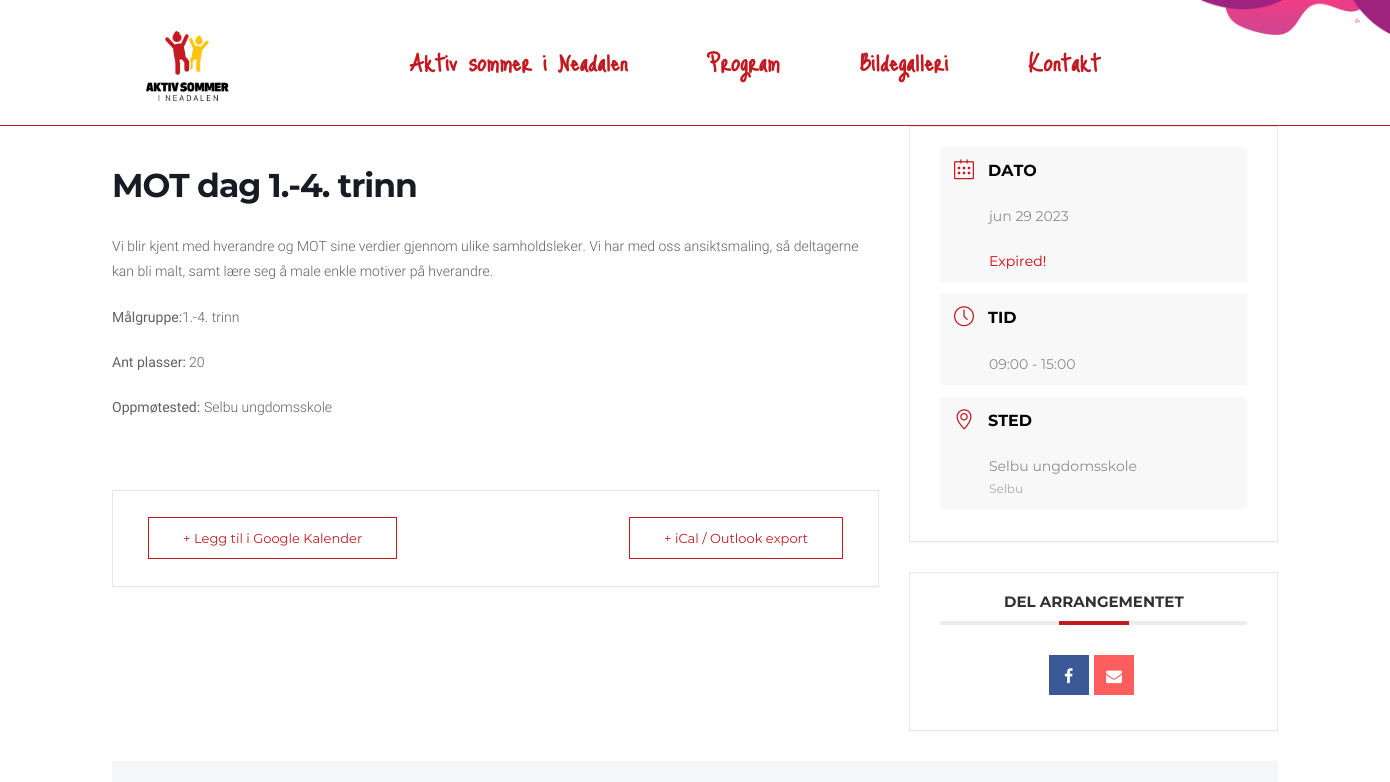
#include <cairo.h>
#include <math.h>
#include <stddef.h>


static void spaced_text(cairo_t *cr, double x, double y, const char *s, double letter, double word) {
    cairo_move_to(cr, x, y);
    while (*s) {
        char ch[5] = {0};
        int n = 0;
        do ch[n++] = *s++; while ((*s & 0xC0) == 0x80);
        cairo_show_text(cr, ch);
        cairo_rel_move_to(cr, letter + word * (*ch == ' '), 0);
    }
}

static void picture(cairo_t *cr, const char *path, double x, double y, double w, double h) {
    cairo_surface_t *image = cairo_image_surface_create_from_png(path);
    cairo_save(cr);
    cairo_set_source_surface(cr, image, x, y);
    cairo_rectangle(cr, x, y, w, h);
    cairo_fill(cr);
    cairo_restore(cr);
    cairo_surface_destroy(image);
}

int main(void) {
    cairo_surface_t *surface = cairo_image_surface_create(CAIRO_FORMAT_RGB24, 1390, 782);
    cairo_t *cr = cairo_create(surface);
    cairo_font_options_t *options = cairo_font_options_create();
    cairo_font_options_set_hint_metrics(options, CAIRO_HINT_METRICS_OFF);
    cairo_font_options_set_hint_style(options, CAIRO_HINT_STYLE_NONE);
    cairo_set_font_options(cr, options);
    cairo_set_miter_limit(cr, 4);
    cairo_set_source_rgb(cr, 1, 1, 1);
    cairo_paint(cr);
    cairo_set_source_rgb(cr, 0.761, 0.102, 0.125);
    cairo_rectangle(cr, 0, 125, 1390, 1);
    cairo_fill(cr);
    picture(cr, "img1.png", 1201, 0, 189, 35);
    picture(cr, "img2.png", 146, 30, 83, 72);
    cairo_select_font_face(cr, "Just Me Again Down Here", CAIRO_FONT_SLANT_NORMAL, CAIRO_FONT_WEIGHT_BOLD);
    cairo_set_font_size(cr, 29);
    cairo_move_to(cr, 410, 71);
    cairo_show_text(cr, "Aktiv sommer i Neadalen");
    cairo_move_to(cr, 707, 71);
    cairo_show_text(cr, "Program");
    cairo_move_to(cr, 860, 71);
    cairo_show_text(cr, "Bildegalleri");
    cairo_move_to(cr, 1028, 71);
    cairo_show_text(cr, "Kontakt");
    cairo_select_font_face(cr, "Montserrat", CAIRO_FONT_SLANT_NORMAL, CAIRO_FONT_WEIGHT_BOLD);
    cairo_set_font_size(cr, 33);
    cairo_set_source_rgb(cr, 0.09, 0.11, 0.141);
    spaced_text(cr, 112, 197, "MOT dag 1.-4. trinn", -1, 0);
    cairo_select_font_face(cr, "Roboto Light", CAIRO_FONT_SLANT_NORMAL, CAIRO_FONT_WEIGHT_NORMAL);
    cairo_set_font_size(cr, 14);
    cairo_set_source_rgb(cr, 0.38, 0.38, 0.38);
    cairo_move_to(cr, 112, 251);
    cairo_show_text(cr, "Vi blir kjent med hverandre og MOT sine verdier gjennom ulike samholdsleker. Vi har med oss ansiktsmaling, så deltagerne");
    cairo_move_to(cr, 112, 276);
    cairo_show_text(cr, "kan bli malt, samt lære seg å male enkle motiver på hverandre.");
    cairo_select_font_face(cr, "Roboto", CAIRO_FONT_SLANT_NORMAL, CAIRO_FONT_WEIGHT_NORMAL);
    cairo_move_to(cr, 112, 322);
    cairo_show_text(cr, "Målgruppe:");
    cairo_select_font_face(cr, "Roboto Light", CAIRO_FONT_SLANT_NORMAL, CAIRO_FONT_WEIGHT_NORMAL);
    cairo_move_to(cr, 182, 322);
    cairo_show_text(cr, "1.-4. trinn");
    cairo_select_font_face(cr, "Roboto", CAIRO_FONT_SLANT_NORMAL, CAIRO_FONT_WEIGHT_NORMAL);
    cairo_move_to(cr, 112, 367);
    cairo_show_text(cr, "Ant plasser:");
    cairo_select_font_face(cr, "Roboto Light", CAIRO_FONT_SLANT_NORMAL, CAIRO_FONT_WEIGHT_NORMAL);
    cairo_move_to(cr, 189, 367);
    cairo_show_text(cr, "20");
    cairo_select_font_face(cr, "Roboto", CAIRO_FONT_SLANT_NORMAL, CAIRO_FONT_WEIGHT_NORMAL);
    cairo_move_to(cr, 112, 412);
    cairo_show_text(cr, "Oppmøtested:");
    cairo_select_font_face(cr, "Roboto Light", CAIRO_FONT_SLANT_NORMAL, CAIRO_FONT_WEIGHT_NORMAL);
    cairo_move_to(cr, 204, 412);
    cairo_show_text(cr, "Selbu ungdomsskole");
    cairo_set_source_rgb(cr, 0.984, 0.984, 0.984);
    cairo_rectangle(cr, 112, 587, 767, 2);
    cairo_fill(cr);
    cairo_rectangle(cr, 112.5, 490.5, 766, 96);
    cairo_set_source_rgb(cr, 0.902, 0.902, 0.902);
    cairo_set_line_width(cr, 1);
    cairo_stroke(cr);
    cairo_rectangle(cr, 148.5, 517.5, 248, 41);
    cairo_set_source_rgb(cr, 0.761, 0.102, 0.125);
    cairo_stroke(cr);
    cairo_select_font_face(cr, "Montserrat", CAIRO_FONT_SLANT_NORMAL, CAIRO_FONT_WEIGHT_NORMAL);
    cairo_set_font_size(cr, 13);
    cairo_move_to(cr, 183, 543);
    cairo_show_text(cr, "+ Legg til i Google Kalender");
    cairo_rectangle(cr, 629.5, 517.5, 213, 41);
    cairo_stroke(cr);
    cairo_move_to(cr, 664, 543);
    cairo_show_text(cr, "+ iCal / Outlook export");
    cairo_set_source_rgb(cr, 0.984, 0.984, 0.984);
    cairo_rectangle(cr, 909, 542, 369, 2);
    cairo_fill(cr);
    cairo_rectangle(cr, 909.5, 126.5, 368, 415);
    cairo_set_source_rgb(cr, 0.902, 0.902, 0.902);
    cairo_stroke(cr);
    cairo_set_source_rgb(cr, 0.969, 0.969, 0.969);
    cairo_rectangle(cr, 940, 147, 307, 135);
    cairo_fill(cr);
    picture(cr, "img3.png", 954, 159, 20, 21);
    cairo_select_font_face(cr, "Montserrat", CAIRO_FONT_SLANT_NORMAL, CAIRO_FONT_WEIGHT_BOLD);
    cairo_set_font_size(cr, 16);
    cairo_set_source_rgb(cr, 0, 0, 0);
    cairo_move_to(cr, 988, 176);
    cairo_show_text(cr, "DATO");
    cairo_select_font_face(cr, "Montserrat", CAIRO_FONT_SLANT_NORMAL, CAIRO_FONT_WEIGHT_NORMAL);
    cairo_set_font_size(cr, 14);
    cairo_set_source_rgb(cr, 0.553, 0.553, 0.553);
    cairo_move_to(cr, 989, 221);
    cairo_show_text(cr, "jun 29 2023");
    cairo_set_source_rgb(cr, 0.847, 0, 0.047);
    cairo_move_to(cr, 989, 266);
    cairo_show_text(cr, "Expired!");
    cairo_set_source_rgb(cr, 0.969, 0.969, 0.969);
    cairo_rectangle(cr, 940, 294, 307, 91);
    cairo_fill(cr);
    picture(cr, "img4.png", 954, 306, 20, 21);
    cairo_select_font_face(cr, "Montserrat", CAIRO_FONT_SLANT_NORMAL, CAIRO_FONT_WEIGHT_BOLD);
    cairo_set_font_size(cr, 16);
    cairo_set_source_rgb(cr, 0, 0, 0);
    cairo_move_to(cr, 988, 323);
    cairo_show_text(cr, "TID");
    cairo_select_font_face(cr, "Montserrat", CAIRO_FONT_SLANT_NORMAL, CAIRO_FONT_WEIGHT_NORMAL);
    cairo_set_font_size(cr, 14);
    cairo_set_source_rgb(cr, 0.553, 0.553, 0.553);
    cairo_move_to(cr, 989, 369);
    cairo_show_text(cr, "09:00 - 15:00");
    cairo_set_source_rgb(cr, 0.969, 0.969, 0.969);
    cairo_rectangle(cr, 940, 397, 307, 112);
    cairo_fill(cr);
    picture(cr, "img5.png", 956, 409, 16, 21);
    cairo_select_font_face(cr, "Montserrat", CAIRO_FONT_SLANT_NORMAL, CAIRO_FONT_WEIGHT_BOLD);
    cairo_set_font_size(cr, 16);
    cairo_set_source_rgb(cr, 0, 0, 0);
    cairo_move_to(cr, 988, 426);
    cairo_show_text(cr, "STED");
    cairo_select_font_face(cr, "Montserrat", CAIRO_FONT_SLANT_NORMAL, CAIRO_FONT_WEIGHT_NORMAL);
    cairo_set_font_size(cr, 14);
    cairo_set_source_rgb(cr, 0.553, 0.553, 0.553);
    cairo_move_to(cr, 989, 471);
    cairo_show_text(cr, "Selbu ungdomsskole");
    cairo_set_font_size(cr, 12);
    cairo_set_source_rgb(cr, 0.663, 0.663, 0.663);
    cairo_move_to(cr, 989, 493);
    cairo_show_text(cr, "Selbu");
    cairo_set_source_rgb(cr, 0.984, 0.984, 0.984);
    cairo_rectangle(cr, 909, 731, 369, 2);
    cairo_fill(cr);
    cairo_rectangle(cr, 909.5, 572.5, 368, 158);
    cairo_set_source_rgb(cr, 0.902, 0.902, 0.902);
    cairo_stroke(cr);
    cairo_set_source_rgb(cr, 0.922, 0.922, 0.922);
    cairo_rectangle(cr, 940, 621, 307, 4);
    cairo_fill(cr);
    cairo_select_font_face(cr, "Montserrat", CAIRO_FONT_SLANT_NORMAL, CAIRO_FONT_WEIGHT_BOLD);
    cairo_set_font_size(cr, 15);
    cairo_set_source_rgb(cr, 0.192, 0.192, 0.192);
    cairo_move_to(cr, 1004, 607);
    cairo_show_text(cr, "DEL ARRANGEMENTET");
    cairo_set_source_rgb(cr, 0.761, 0.102, 0.125);
    cairo_rectangle(cr, 1059, 621, 70, 4);
    cairo_fill(cr);
    cairo_set_source_rgb(cr, 0.231, 0.349, 0.588);
    cairo_rectangle(cr, 1049, 655, 40, 40);
    cairo_fill(cr);
    picture(cr, "img6.png", 1064, 668, 9, 16);
    cairo_set_source_rgb(cr, 1, 0.365, 0.369);
    cairo_rectangle(cr, 1094, 655, 40, 40);
    cairo_fill(cr);
    picture(cr, "img7.png", 1106, 670, 16, 14);
    cairo_set_source_rgb(cr, 0.957, 0.961, 0.969);
    cairo_rectangle(cr, 112, 761, 1166, 21);
    cairo_fill(cr);
    cairo_surface_write_to_png(surface, "page.png");
    cairo_font_options_destroy(options);
    cairo_destroy(cr);
    cairo_surface_destroy(surface);
    return 0;
}
